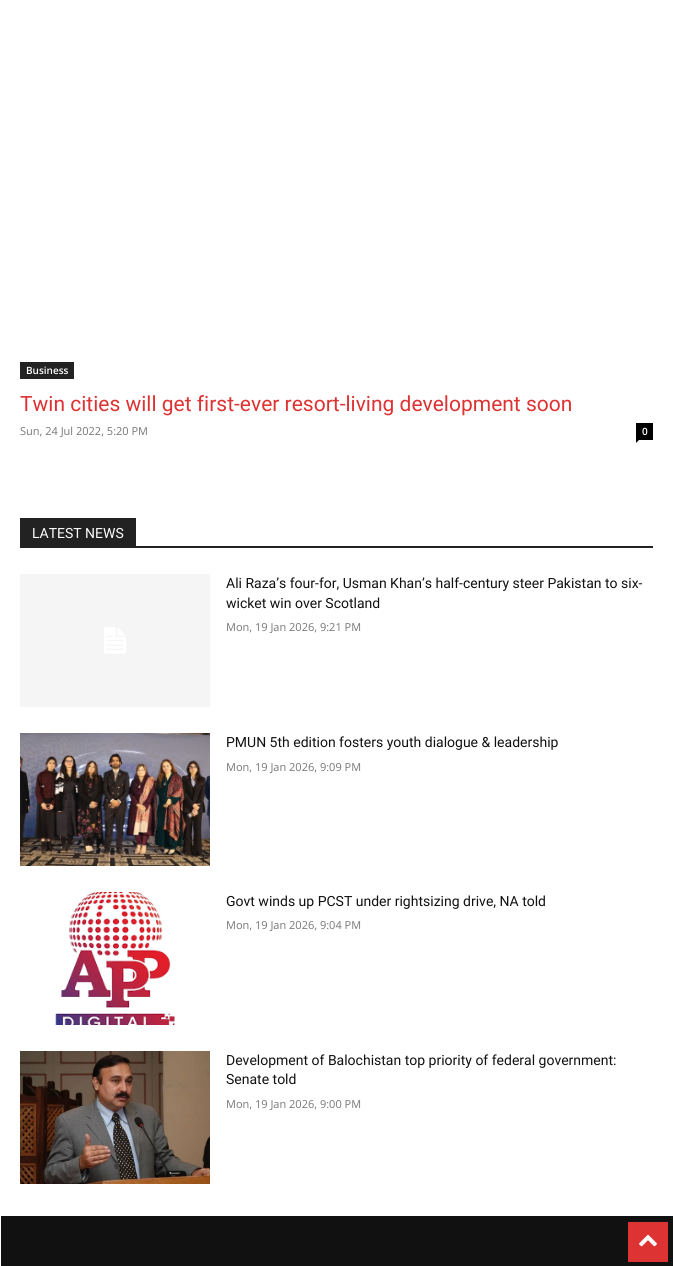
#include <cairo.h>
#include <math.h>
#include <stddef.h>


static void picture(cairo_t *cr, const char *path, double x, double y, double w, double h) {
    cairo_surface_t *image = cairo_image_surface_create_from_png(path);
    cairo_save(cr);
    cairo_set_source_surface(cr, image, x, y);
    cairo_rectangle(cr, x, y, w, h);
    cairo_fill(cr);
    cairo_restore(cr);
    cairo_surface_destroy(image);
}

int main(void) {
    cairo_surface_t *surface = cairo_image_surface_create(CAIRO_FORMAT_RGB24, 673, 1266);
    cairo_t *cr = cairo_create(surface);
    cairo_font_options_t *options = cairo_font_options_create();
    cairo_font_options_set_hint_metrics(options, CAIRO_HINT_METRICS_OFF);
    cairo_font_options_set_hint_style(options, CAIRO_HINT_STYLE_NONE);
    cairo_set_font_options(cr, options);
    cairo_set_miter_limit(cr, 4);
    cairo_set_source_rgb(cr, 1, 1, 1);
    cairo_paint(cr);
    cairo_set_source_rgb(cr, 0.133, 0.133, 0.133);
    cairo_rectangle(cr, 20, 362, 54, 17);
    cairo_fill(cr);
    cairo_select_font_face(cr, "Open Sans SemiBold", CAIRO_FONT_SLANT_NORMAL, CAIRO_FONT_WEIGHT_NORMAL);
    cairo_set_font_size(cr, 10);
    cairo_set_source_rgb(cr, 1, 1, 1);
    cairo_move_to(cr, 26, 374);
    cairo_show_text(cr, "Business");
    cairo_select_font_face(cr, "Roboto", CAIRO_FONT_SLANT_NORMAL, CAIRO_FONT_WEIGHT_NORMAL);
    cairo_set_font_size(cr, 21);
    cairo_set_source_rgb(cr, 0.867, 0.2, 0.2);
    cairo_move_to(cr, 20, 411);
    cairo_show_text(cr, "Twin cities will get first-ever resort-living development soon");
    cairo_select_font_face(cr, "Open Sans", CAIRO_FONT_SLANT_NORMAL, CAIRO_FONT_WEIGHT_NORMAL);
    cairo_set_font_size(cr, 11);
    cairo_set_source_rgb(cr, 0.463, 0.463, 0.463);
    cairo_move_to(cr, 20, 435);
    cairo_show_text(cr, "Sun, 24 Jul 2022, 5:20 PM");
    cairo_set_source_rgb(cr, 0, 0, 0);
    cairo_rectangle(cr, 636, 423, 17, 17);
    cairo_fill(cr);
    cairo_select_font_face(cr, "Open Sans SemiBold", CAIRO_FONT_SLANT_NORMAL, CAIRO_FONT_WEIGHT_NORMAL);
    cairo_set_font_size(cr, 10);
    cairo_set_source_rgb(cr, 1, 1, 1);
    cairo_move_to(cr, 642, 435);
    cairo_show_text(cr, "0");
    cairo_set_source_rgb(cr, 0, 0, 0);
    cairo_new_path(cr);
    cairo_move_to(cr, 636, 440);
    cairo_line_to(cr, 639, 440);
    cairo_line_to(cr, 636, 443);
    cairo_close_path(cr);
    cairo_fill(cr);
    cairo_set_source_rgb(cr, 0.133, 0.133, 0.133);
    cairo_rectangle(cr, 20, 546, 633, 2);
    cairo_fill(cr);
    cairo_rectangle(cr, 20, 518, 116, 28);
    cairo_fill(cr);
    cairo_select_font_face(cr, "Roboto", CAIRO_FONT_SLANT_NORMAL, CAIRO_FONT_WEIGHT_NORMAL);
    cairo_set_font_size(cr, 14);
    cairo_set_source_rgb(cr, 1, 1, 1);
    cairo_move_to(cr, 32, 538);
    cairo_show_text(cr, "LATEST NEWS");
    picture(cr, "img1.png", 20, 574, 190, 133);
    cairo_set_source_rgb(cr, 0.067, 0.067, 0.067);
    cairo_move_to(cr, 226, 588);
    cairo_show_text(cr, "Ali Raza’s four-for, Usman Khan’s half-century steer Pakistan to six-");
    cairo_move_to(cr, 226, 608);
    cairo_show_text(cr, "wicket win over Scotland");
    cairo_select_font_face(cr, "Open Sans", CAIRO_FONT_SLANT_NORMAL, CAIRO_FONT_WEIGHT_NORMAL);
    cairo_set_font_size(cr, 11);
    cairo_set_source_rgb(cr, 0.463, 0.463, 0.463);
    cairo_move_to(cr, 226, 631);
    cairo_show_text(cr, "Mon, 19 Jan 2026, 9:21 PM");
    picture(cr, "img2.png", 20, 733, 190, 133);
    cairo_select_font_face(cr, "Roboto", CAIRO_FONT_SLANT_NORMAL, CAIRO_FONT_WEIGHT_NORMAL);
    cairo_set_font_size(cr, 14);
    cairo_set_source_rgb(cr, 0.067, 0.067, 0.067);
    cairo_move_to(cr, 226, 747);
    cairo_show_text(cr, "PMUN 5th edition fosters youth dialogue & leadership");
    cairo_select_font_face(cr, "Open Sans", CAIRO_FONT_SLANT_NORMAL, CAIRO_FONT_WEIGHT_NORMAL);
    cairo_set_font_size(cr, 11);
    cairo_set_source_rgb(cr, 0.463, 0.463, 0.463);
    cairo_move_to(cr, 226, 771);
    cairo_show_text(cr, "Mon, 19 Jan 2026, 9:09 PM");
    picture(cr, "img3.png", 55, 892, 120, 133);
    cairo_select_font_face(cr, "Roboto", CAIRO_FONT_SLANT_NORMAL, CAIRO_FONT_WEIGHT_NORMAL);
    cairo_set_font_size(cr, 14);
    cairo_set_source_rgb(cr, 0.067, 0.067, 0.067);
    cairo_move_to(cr, 226, 906);
    cairo_show_text(cr, "Govt winds up PCST under rightsizing drive, NA told");
    cairo_select_font_face(cr, "Open Sans", CAIRO_FONT_SLANT_NORMAL, CAIRO_FONT_WEIGHT_NORMAL);
    cairo_set_font_size(cr, 11);
    cairo_set_source_rgb(cr, 0.463, 0.463, 0.463);
    cairo_move_to(cr, 226, 929);
    cairo_show_text(cr, "Mon, 19 Jan 2026, 9:04 PM");
    picture(cr, "img4.png", 20, 1051, 190, 133);
    cairo_select_font_face(cr, "Roboto", CAIRO_FONT_SLANT_NORMAL, CAIRO_FONT_WEIGHT_NORMAL);
    cairo_set_font_size(cr, 14);
    cairo_set_source_rgb(cr, 0.067, 0.067, 0.067);
    cairo_move_to(cr, 226, 1065);
    cairo_show_text(cr, "Development of Balochistan top priority of federal government:");
    cairo_move_to(cr, 226, 1084);
    cairo_show_text(cr, "Senate told");
    cairo_select_font_face(cr, "Open Sans", CAIRO_FONT_SLANT_NORMAL, CAIRO_FONT_WEIGHT_NORMAL);
    cairo_set_font_size(cr, 11);
    cairo_set_source_rgb(cr, 0.463, 0.463, 0.463);
    cairo_move_to(cr, 226, 1108);
    cairo_show_text(cr, "Mon, 19 Jan 2026, 9:00 PM");
    cairo_set_source_rgb(cr, 0.067, 0.067, 0.067);
    cairo_rectangle(cr, 1, 1216, 672, 50);
    cairo_fill(cr);
    cairo_set_source_rgb(cr, 0.867, 0.2, 0.2);
    cairo_rectangle(cr, 628, 1222, 40, 40);
    cairo_fill(cr);
    picture(cr, "img5.png", 639, 1234, 18, 13);
    cairo_surface_write_to_png(surface, "page.png");
    cairo_font_options_destroy(options);
    cairo_destroy(cr);
    cairo_surface_destroy(surface);
    return 0;
}
